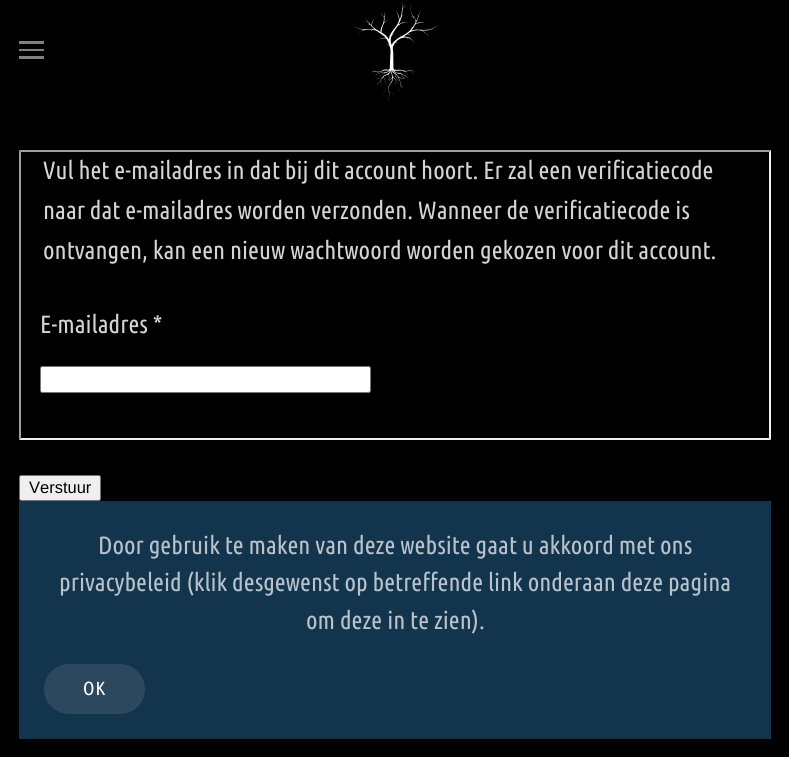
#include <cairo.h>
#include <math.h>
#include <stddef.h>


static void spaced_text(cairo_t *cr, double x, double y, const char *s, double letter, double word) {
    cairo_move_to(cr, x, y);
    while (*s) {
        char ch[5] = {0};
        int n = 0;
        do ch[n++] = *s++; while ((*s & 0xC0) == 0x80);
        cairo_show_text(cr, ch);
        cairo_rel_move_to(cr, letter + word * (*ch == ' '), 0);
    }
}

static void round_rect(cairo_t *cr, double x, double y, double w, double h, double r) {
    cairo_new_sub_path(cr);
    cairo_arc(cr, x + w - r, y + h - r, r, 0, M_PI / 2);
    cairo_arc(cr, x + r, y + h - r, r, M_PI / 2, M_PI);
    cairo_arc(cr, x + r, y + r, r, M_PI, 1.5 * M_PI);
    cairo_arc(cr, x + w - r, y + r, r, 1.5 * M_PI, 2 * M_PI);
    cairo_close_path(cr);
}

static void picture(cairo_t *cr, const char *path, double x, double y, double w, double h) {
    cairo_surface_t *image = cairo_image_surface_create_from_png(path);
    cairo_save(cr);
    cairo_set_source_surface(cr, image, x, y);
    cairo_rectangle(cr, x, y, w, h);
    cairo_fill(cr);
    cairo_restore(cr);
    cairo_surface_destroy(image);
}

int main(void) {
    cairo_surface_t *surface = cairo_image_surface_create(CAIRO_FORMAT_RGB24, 789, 757);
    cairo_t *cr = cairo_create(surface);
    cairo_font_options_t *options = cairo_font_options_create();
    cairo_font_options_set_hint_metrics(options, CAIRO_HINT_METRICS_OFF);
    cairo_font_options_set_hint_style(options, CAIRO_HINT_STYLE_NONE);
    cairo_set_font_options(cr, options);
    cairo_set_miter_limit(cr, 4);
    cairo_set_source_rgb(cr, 0, 0, 0);
    cairo_paint(cr);
    cairo_set_source_rgb(cr, 0.502, 0.502, 0.502);
    cairo_rectangle(cr, 19, 41, 25, 3);
    cairo_fill(cr);
    cairo_rectangle(cr, 19, 49, 25, 2);
    cairo_fill(cr);
    cairo_rectangle(cr, 19, 56, 25, 3);
    cairo_fill(cr);
    picture(cr, "img1.png", 352, 1, 86, 100);
    cairo_set_source_rgb(cr, 0.624, 0.624, 0.624);
    cairo_new_path(cr);
    cairo_move_to(cr, 19, 150);
    cairo_line_to(cr, 771, 150);
    cairo_line_to(cr, 769, 152);
    cairo_line_to(cr, 21, 152);
    cairo_close_path(cr);
    cairo_fill(cr);
    cairo_set_source_rgb(cr, 0.937, 0.937, 0.937);
    cairo_new_path(cr);
    cairo_move_to(cr, 771, 150);
    cairo_line_to(cr, 771, 440);
    cairo_line_to(cr, 769, 438);
    cairo_line_to(cr, 769, 152);
    cairo_close_path(cr);
    cairo_fill(cr);
    cairo_new_path(cr);
    cairo_move_to(cr, 771, 440);
    cairo_line_to(cr, 19, 440);
    cairo_line_to(cr, 21, 438);
    cairo_line_to(cr, 769, 438);
    cairo_close_path(cr);
    cairo_fill(cr);
    cairo_set_source_rgb(cr, 0.624, 0.624, 0.624);
    cairo_new_path(cr);
    cairo_move_to(cr, 19, 440);
    cairo_line_to(cr, 19, 150);
    cairo_line_to(cr, 21, 152);
    cairo_line_to(cr, 21, 438);
    cairo_close_path(cr);
    cairo_fill(cr);
    cairo_select_font_face(cr, "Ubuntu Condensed", CAIRO_FONT_SLANT_NORMAL, CAIRO_FONT_WEIGHT_NORMAL);
    cairo_set_font_size(cr, 25);
    cairo_set_source_rgb(cr, 0.831, 0.831, 0.831);
    cairo_move_to(cr, 43, 179);
    cairo_show_text(cr, "Vul het e-mailadres in dat bij dit account hoort. Er zal een verificatiecode");
    cairo_move_to(cr, 43, 219);
    cairo_show_text(cr, "naar dat e-mailadres worden verzonden. Wanneer de verificatiecode is");
    cairo_move_to(cr, 43, 259);
    cairo_show_text(cr, "ontvangen, kan een nieuw wachtwoord worden gekozen voor dit account.");
    cairo_move_to(cr, 40, 333);
    cairo_show_text(cr, "E-mailadres *");
    cairo_set_source_rgb(cr, 1, 1, 1);
    round_rect(cr, 40.5, 366.5, 330, 26, 2);
    cairo_fill_preserve(cr);
    cairo_set_source_rgb(cr, 0.463, 0.463, 0.463);
    cairo_set_line_width(cr, 1);
    cairo_stroke(cr);
    cairo_set_source_rgb(cr, 0.937, 0.937, 0.937);
    round_rect(cr, 19.5, 475.5, 81, 25, 2);
    cairo_fill_preserve(cr);
    cairo_set_source_rgb(cr, 0.463, 0.463, 0.463);
    cairo_stroke(cr);
    cairo_select_font_face(cr, "Liberation Sans", CAIRO_FONT_SLANT_NORMAL, CAIRO_FONT_WEIGHT_NORMAL);
    cairo_set_font_size(cr, 16.5);
    cairo_set_source_rgb(cr, 0, 0, 0);
    cairo_move_to(cr, 29, 493);
    cairo_show_text(cr, "Verstuur");
    cairo_set_source_rgb(cr, 0.078, 0.204, 0.302);
    cairo_rectangle(cr, 19, 501, 752, 238);
    cairo_fill(cr);
    cairo_select_font_face(cr, "Ubuntu Condensed", CAIRO_FONT_SLANT_NORMAL, CAIRO_FONT_WEIGHT_NORMAL);
    cairo_set_font_size(cr, 25);
    cairo_set_source_rgb(cr, 0.725, 0.761, 0.792);
    cairo_move_to(cr, 98, 554);
    cairo_show_text(cr, "Door gebruik te maken van deze website gaat u akkoord met ons");
    cairo_move_to(cr, 59, 591);
    cairo_show_text(cr, "privacybeleid (klik desgewenst op betreffende link onderaan deze pagina");
    cairo_move_to(cr, 306, 629);
    cairo_show_text(cr, "om deze in te zien).");
    cairo_set_source_rgb(cr, 0.173, 0.282, 0.373);
    round_rect(cr, 44, 664, 101, 50, 25);
    cairo_fill(cr);
    cairo_set_font_size(cr, 19);
    cairo_set_source_rgb(cr, 1, 1, 1);
    spaced_text(cr, 83, 695, "OK", 1, 0);
    cairo_surface_write_to_png(surface, "page.png");
    cairo_font_options_destroy(options);
    cairo_destroy(cr);
    cairo_surface_destroy(surface);
    return 0;
}
